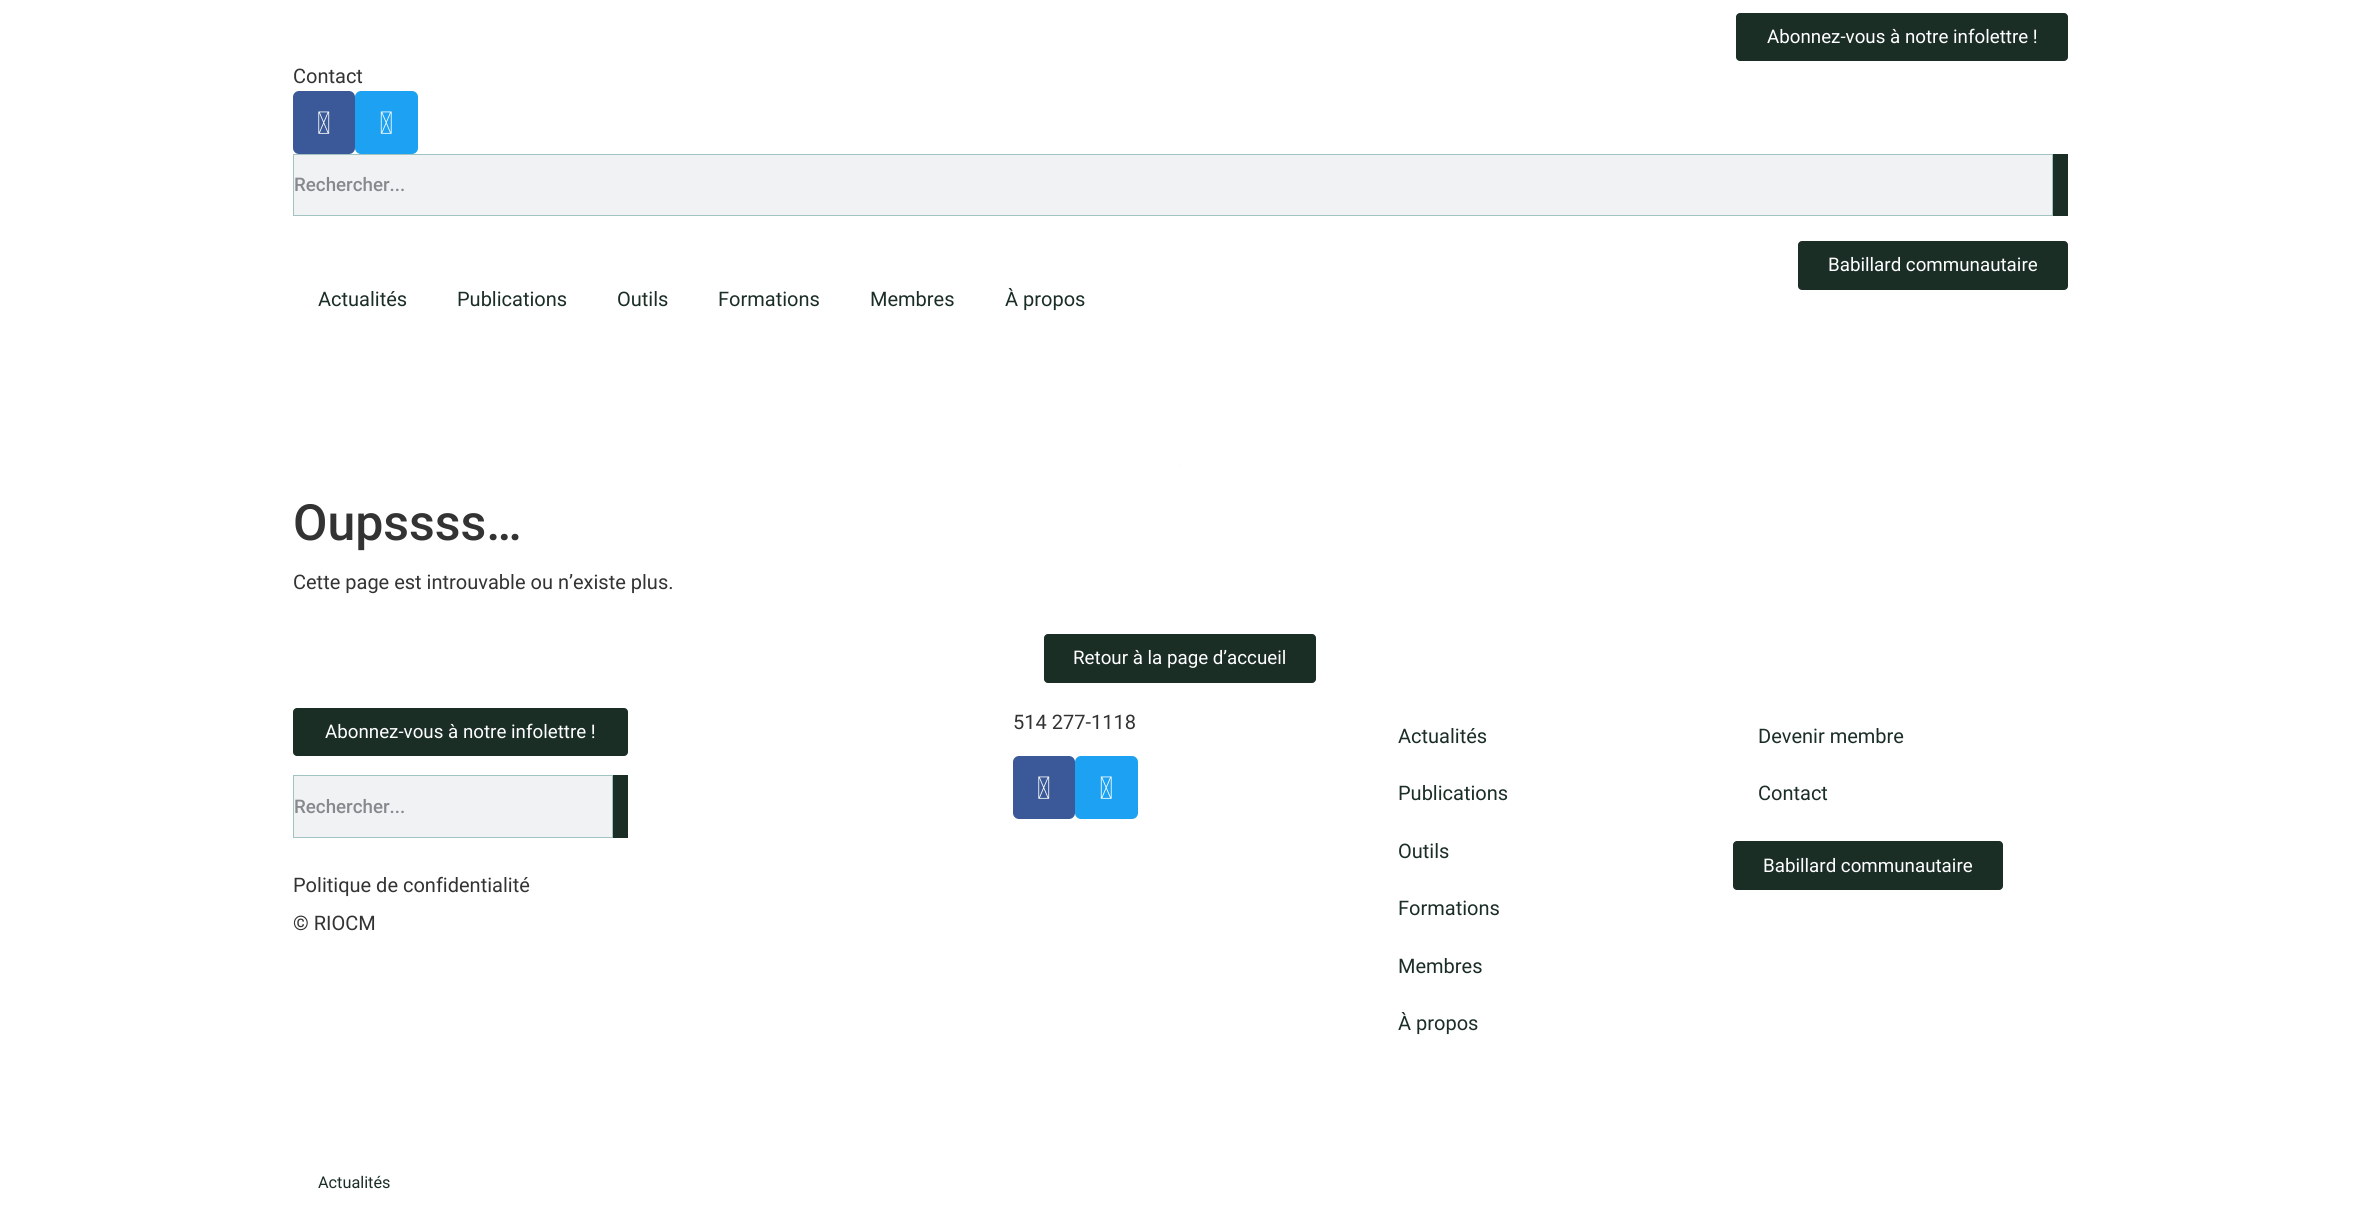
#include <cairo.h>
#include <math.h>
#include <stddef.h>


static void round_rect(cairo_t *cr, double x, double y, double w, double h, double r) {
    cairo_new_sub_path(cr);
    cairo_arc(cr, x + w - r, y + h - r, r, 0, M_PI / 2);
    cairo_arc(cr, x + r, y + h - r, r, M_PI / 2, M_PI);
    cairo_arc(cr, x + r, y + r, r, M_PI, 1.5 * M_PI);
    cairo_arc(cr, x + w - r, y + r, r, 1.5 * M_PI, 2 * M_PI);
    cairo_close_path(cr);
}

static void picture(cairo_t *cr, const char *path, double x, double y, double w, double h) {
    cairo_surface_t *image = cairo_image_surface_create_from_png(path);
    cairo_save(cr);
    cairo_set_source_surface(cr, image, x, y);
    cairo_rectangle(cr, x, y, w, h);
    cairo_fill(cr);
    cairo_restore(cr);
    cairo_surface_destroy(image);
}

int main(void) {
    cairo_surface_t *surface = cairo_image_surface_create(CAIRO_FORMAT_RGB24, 2360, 1213);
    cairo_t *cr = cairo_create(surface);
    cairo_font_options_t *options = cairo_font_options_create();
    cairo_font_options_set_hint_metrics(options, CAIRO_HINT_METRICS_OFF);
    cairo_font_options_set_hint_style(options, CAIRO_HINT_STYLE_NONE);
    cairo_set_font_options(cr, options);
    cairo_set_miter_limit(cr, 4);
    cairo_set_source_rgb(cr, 1, 1, 1);
    cairo_paint(cr);
    cairo_set_source_rgb(cr, 0.106, 0.18, 0.149);
    round_rect(cr, 1736, 13, 332, 48, 4);
    cairo_fill(cr);
    cairo_select_font_face(cr, "Roboto", CAIRO_FONT_SLANT_NORMAL, CAIRO_FONT_WEIGHT_NORMAL);
    cairo_set_font_size(cr, 18.75);
    cairo_set_source_rgb(cr, 1, 1, 1);
    cairo_move_to(cr, 1767, 43);
    cairo_show_text(cr, "Abonnez-vous à notre infolettre !");
    cairo_set_font_size(cr, 20);
    cairo_set_source_rgb(cr, 0.2, 0.2, 0.2);
    cairo_move_to(cr, 293, 83);
    cairo_show_text(cr, "Contact");
    cairo_set_source_rgb(cr, 0.231, 0.349, 0.596);
    round_rect(cr, 293, 91, 62, 63, 6);
    cairo_fill(cr);
    picture(cr, "img1.png", 318, 111, 12, 23);
    cairo_set_source_rgb(cr, 0.114, 0.631, 0.949);
    round_rect(cr, 355, 91, 63, 63, 6);
    cairo_fill(cr);
    picture(cr, "img2.png", 380, 111, 12, 23);
    cairo_set_source_rgb(cr, 0.945, 0.949, 0.953);
    cairo_rectangle(cr, 293.5, 154.5, 1759, 61);
    cairo_fill_preserve(cr);
    cairo_set_source_rgb(cr, 0.631, 0.769, 0.765);
    cairo_set_line_width(cr, 1);
    cairo_stroke(cr);
    cairo_select_font_face(cr, "Roboto Medium", CAIRO_FONT_SLANT_NORMAL, CAIRO_FONT_WEIGHT_NORMAL);
    cairo_set_font_size(cr, 18.75);
    cairo_set_source_rgb(cr, 0.525, 0.541, 0.557);
    cairo_move_to(cr, 294, 191);
    cairo_show_text(cr, "Rechercher...");
    cairo_set_source_rgb(cr, 0.106, 0.18, 0.149);
    cairo_rectangle(cr, 2053, 154, 15, 62);
    cairo_fill(cr);
    round_rect(cr, 1798, 241, 270, 49, 4);
    cairo_fill(cr);
    cairo_select_font_face(cr, "Roboto", CAIRO_FONT_SLANT_NORMAL, CAIRO_FONT_WEIGHT_NORMAL);
    cairo_set_source_rgb(cr, 1, 1, 1);
    cairo_move_to(cr, 1828, 271);
    cairo_show_text(cr, "Babillard communautaire");
    cairo_set_font_size(cr, 20);
    cairo_set_source_rgb(cr, 0.106, 0.18, 0.149);
    cairo_move_to(cr, 318, 306);
    cairo_show_text(cr, "Actualités");
    cairo_move_to(cr, 457, 306);
    cairo_show_text(cr, "Publications");
    cairo_move_to(cr, 617, 306);
    cairo_show_text(cr, "Outils");
    cairo_move_to(cr, 718, 306);
    cairo_show_text(cr, "Formations");
    cairo_move_to(cr, 870, 306);
    cairo_show_text(cr, "Membres");
    cairo_move_to(cr, 1005, 306);
    cairo_show_text(cr, "À propos");
    cairo_set_source_rgb(cr, 0.957, 0.961, 0.957);
    cairo_rectangle(cr, 1180, 465, 1, 1);
    cairo_fill(cr);
    cairo_select_font_face(cr, "Roboto Medium", CAIRO_FONT_SLANT_NORMAL, CAIRO_FONT_WEIGHT_NORMAL);
    cairo_set_font_size(cr, 50);
    cairo_set_source_rgb(cr, 0.2, 0.2, 0.2);
    cairo_move_to(cr, 293, 540);
    cairo_show_text(cr, "Oupssss…");
    cairo_select_font_face(cr, "Roboto", CAIRO_FONT_SLANT_NORMAL, CAIRO_FONT_WEIGHT_NORMAL);
    cairo_set_font_size(cr, 20);
    cairo_move_to(cr, 293, 589);
    cairo_show_text(cr, "Cette page est introuvable ou n’existe plus.");
    cairo_set_source_rgb(cr, 0.106, 0.18, 0.149);
    round_rect(cr, 1044, 634, 272, 49, 4);
    cairo_fill(cr);
    cairo_set_font_size(cr, 18.75);
    cairo_set_source_rgb(cr, 1, 1, 1);
    cairo_move_to(cr, 1073, 664);
    cairo_show_text(cr, "Retour à la page d’accueil");
    cairo_set_source_rgb(cr, 0.106, 0.18, 0.149);
    round_rect(cr, 293, 708, 335, 48, 4);
    cairo_fill(cr);
    cairo_set_source_rgb(cr, 1, 1, 1);
    cairo_move_to(cr, 325, 738);
    cairo_show_text(cr, "Abonnez-vous à notre infolettre !");
    cairo_set_source_rgb(cr, 0.945, 0.949, 0.953);
    cairo_rectangle(cr, 293.5, 775.5, 319, 62);
    cairo_fill_preserve(cr);
    cairo_set_source_rgb(cr, 0.631, 0.769, 0.765);
    cairo_stroke(cr);
    cairo_select_font_face(cr, "Roboto Medium", CAIRO_FONT_SLANT_NORMAL, CAIRO_FONT_WEIGHT_NORMAL);
    cairo_set_source_rgb(cr, 0.525, 0.541, 0.557);
    cairo_move_to(cr, 294, 813);
    cairo_show_text(cr, "Rechercher...");
    cairo_set_source_rgb(cr, 0.106, 0.18, 0.149);
    cairo_rectangle(cr, 613, 775, 15, 63);
    cairo_fill(cr);
    cairo_select_font_face(cr, "Roboto", CAIRO_FONT_SLANT_NORMAL, CAIRO_FONT_WEIGHT_NORMAL);
    cairo_set_font_size(cr, 20);
    cairo_set_source_rgb(cr, 0.2, 0.2, 0.2);
    cairo_move_to(cr, 293, 892);
    cairo_show_text(cr, "Politique de confidentialité");
    cairo_move_to(cr, 293, 930);
    cairo_show_text(cr, "© RIOCM");
    cairo_move_to(cr, 1013, 729);
    cairo_show_text(cr, "514 277-1118");
    cairo_set_source_rgb(cr, 0.231, 0.349, 0.596);
    round_rect(cr, 1013, 756, 62, 63, 6);
    cairo_fill(cr);
    picture(cr, "img1.png", 1038, 776, 12, 23);
    cairo_set_source_rgb(cr, 0.114, 0.631, 0.949);
    round_rect(cr, 1075, 756, 63, 63, 6);
    cairo_fill(cr);
    picture(cr, "img2.png", 1100, 776, 12, 23);
    cairo_set_source_rgb(cr, 0.106, 0.18, 0.149);
    cairo_move_to(cr, 1398, 743);
    cairo_show_text(cr, "Actualités");
    cairo_move_to(cr, 1398, 800);
    cairo_show_text(cr, "Publications");
    cairo_move_to(cr, 1398, 858);
    cairo_show_text(cr, "Outils");
    cairo_move_to(cr, 1398, 915);
    cairo_show_text(cr, "Formations");
    cairo_move_to(cr, 1398, 973);
    cairo_show_text(cr, "Membres");
    cairo_move_to(cr, 1398, 1030);
    cairo_show_text(cr, "À propos");
    cairo_move_to(cr, 1758, 743);
    cairo_show_text(cr, "Devenir membre");
    cairo_move_to(cr, 1758, 800);
    cairo_show_text(cr, "Contact");
    round_rect(cr, 1733, 841, 270, 49, 4);
    cairo_fill(cr);
    cairo_set_font_size(cr, 18.75);
    cairo_set_source_rgb(cr, 1, 1, 1);
    cairo_move_to(cr, 1763, 872);
    cairo_show_text(cr, "Babillard communautaire");
    cairo_set_font_size(cr, 16.25);
    cairo_set_source_rgb(cr, 0.106, 0.18, 0.149);
    cairo_move_to(cr, 318, 1188);
    cairo_show_text(cr, "Actualités");
    cairo_surface_write_to_png(surface, "page.png");
    cairo_font_options_destroy(options);
    cairo_destroy(cr);
    cairo_surface_destroy(surface);
    return 0;
}
